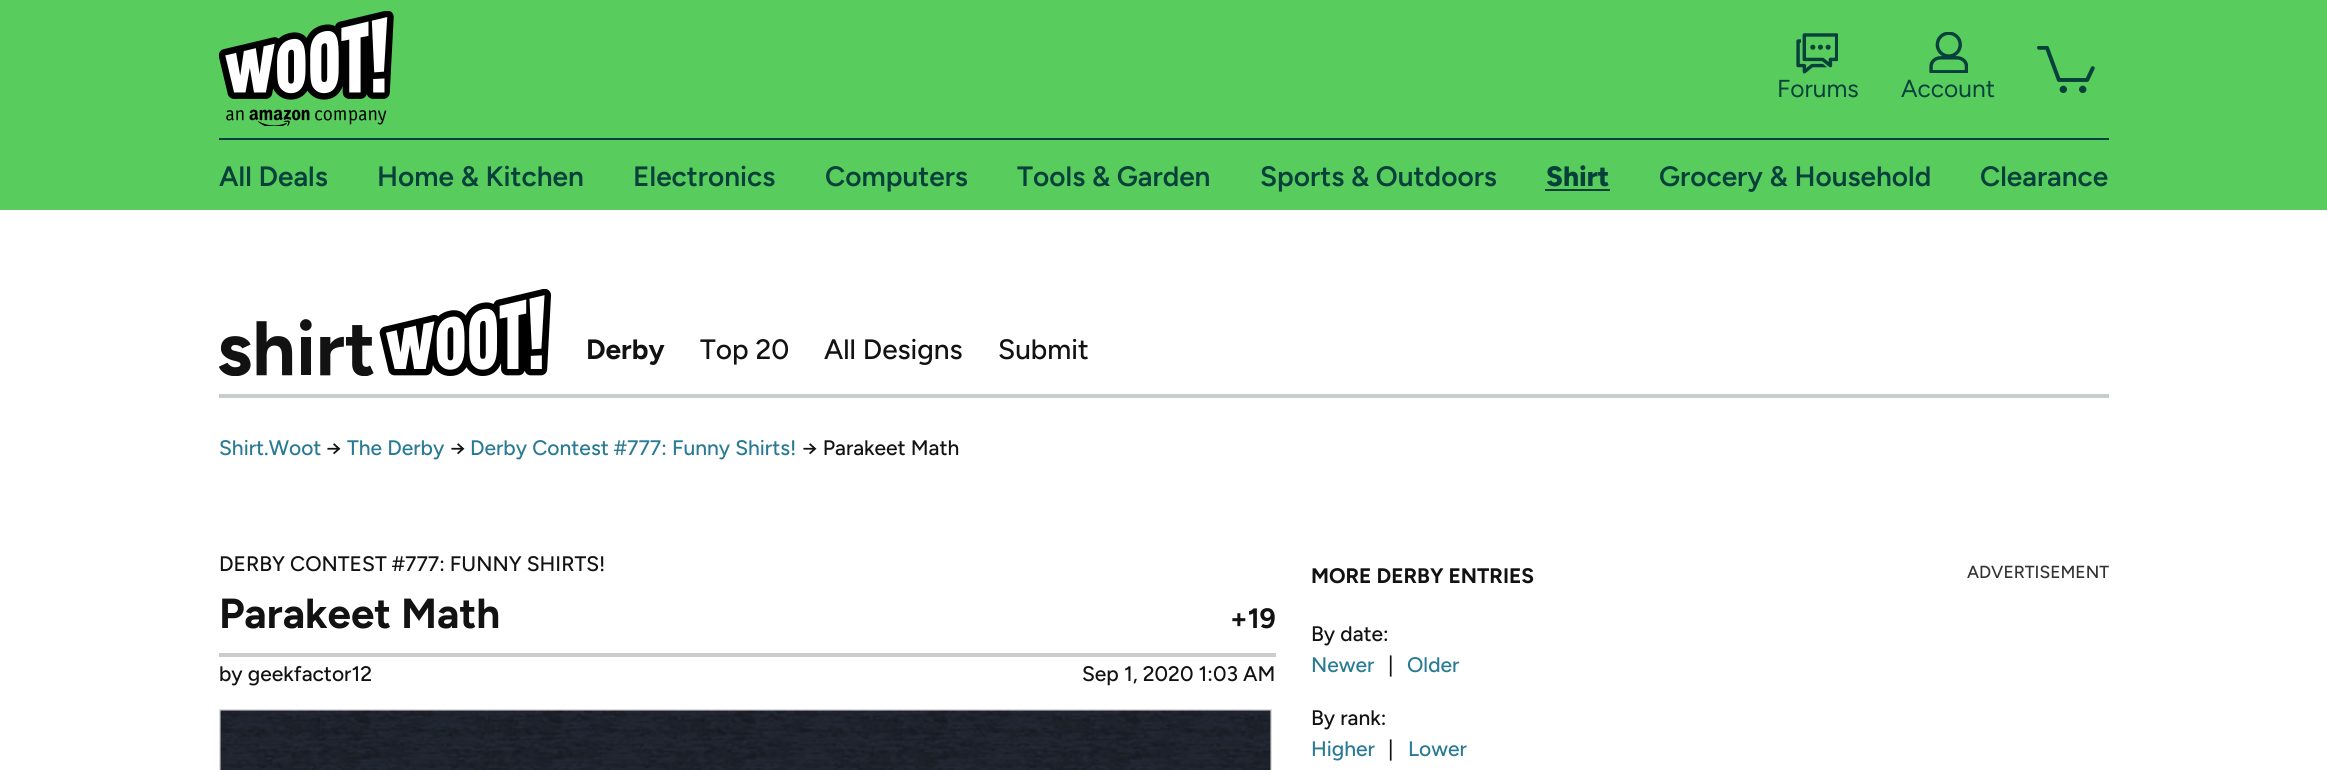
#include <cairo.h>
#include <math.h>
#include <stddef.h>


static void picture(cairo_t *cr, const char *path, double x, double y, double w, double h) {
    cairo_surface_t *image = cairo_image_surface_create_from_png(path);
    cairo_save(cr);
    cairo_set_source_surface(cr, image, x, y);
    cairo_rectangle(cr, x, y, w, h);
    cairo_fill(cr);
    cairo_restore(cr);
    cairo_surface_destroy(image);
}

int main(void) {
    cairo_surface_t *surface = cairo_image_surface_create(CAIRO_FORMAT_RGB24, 2327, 770);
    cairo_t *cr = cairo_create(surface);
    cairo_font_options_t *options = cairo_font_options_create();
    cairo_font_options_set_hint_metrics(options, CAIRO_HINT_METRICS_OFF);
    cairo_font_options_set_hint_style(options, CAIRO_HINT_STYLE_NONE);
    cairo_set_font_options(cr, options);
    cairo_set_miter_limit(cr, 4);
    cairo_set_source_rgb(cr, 1, 1, 1);
    cairo_paint(cr);
    cairo_set_source_rgb(cr, 0.345, 0.804, 0.365);
    cairo_rectangle(cr, 0, 0, 2327, 210);
    cairo_fill(cr);
    cairo_set_source_rgb(cr, 0.02, 0.255, 0.227);
    cairo_rectangle(cr, 219, 138, 1890, 2);
    cairo_fill(cr);
    picture(cr, "img1.png", 219, 11, 175, 115);
    picture(cr, "img2.png", 1796, 33, 42, 41);
    cairo_select_font_face(cr, "Figtree", CAIRO_FONT_SLANT_NORMAL, CAIRO_FONT_WEIGHT_NORMAL);
    cairo_set_font_size(cr, 24.5);
    cairo_move_to(cr, 1777, 97);
    cairo_show_text(cr, "Forums");
    picture(cr, "img3.png", 1929, 32, 39, 41);
    cairo_move_to(cr, 1901, 97);
    cairo_show_text(cr, "Account");
    picture(cr, "img4.png", 2037, 46, 58, 47);
    cairo_select_font_face(cr, "Figtree SemiBold", CAIRO_FONT_SLANT_NORMAL, CAIRO_FONT_WEIGHT_NORMAL);
    cairo_set_font_size(cr, 28);
    cairo_move_to(cr, 219, 186);
    cairo_show_text(cr, "All Deals");
    cairo_move_to(cr, 377, 186);
    cairo_show_text(cr, "Home & Kitchen");
    cairo_move_to(cr, 633, 186);
    cairo_show_text(cr, "Electronics");
    cairo_move_to(cr, 825, 186);
    cairo_show_text(cr, "Computers");
    cairo_move_to(cr, 1017, 186);
    cairo_show_text(cr, "Tools & Garden");
    cairo_move_to(cr, 1260, 186);
    cairo_show_text(cr, "Sports & Outdoors");
    cairo_select_font_face(cr, "Figtree ExtraBold", CAIRO_FONT_SLANT_NORMAL, CAIRO_FONT_WEIGHT_NORMAL);
    cairo_move_to(cr, 1546, 186);
    cairo_show_text(cr, "Shirt");
    cairo_rectangle(cr, 1545, 189, 65, 2);
    cairo_fill(cr);
    cairo_select_font_face(cr, "Figtree SemiBold", CAIRO_FONT_SLANT_NORMAL, CAIRO_FONT_WEIGHT_NORMAL);
    cairo_move_to(cr, 1659, 186);
    cairo_show_text(cr, "Grocery & Household");
    cairo_move_to(cr, 1980, 186);
    cairo_show_text(cr, "Clearance");
    cairo_set_source_rgb(cr, 0.784, 0.8, 0.8);
    cairo_rectangle(cr, 219, 394, 1890, 4);
    cairo_fill(cr);
    picture(cr, "img5.png", 219, 289, 332, 87);
    cairo_select_font_face(cr, "Figtree", CAIRO_FONT_SLANT_NORMAL, CAIRO_FONT_WEIGHT_BOLD);
    cairo_set_source_rgb(cr, 0.071, 0.071, 0.071);
    cairo_move_to(cr, 586, 359);
    cairo_show_text(cr, "Derby");
    cairo_select_font_face(cr, "Figtree Medium", CAIRO_FONT_SLANT_NORMAL, CAIRO_FONT_WEIGHT_NORMAL);
    cairo_move_to(cr, 700, 359);
    cairo_show_text(cr, "Top 20");
    cairo_move_to(cr, 824, 359);
    cairo_show_text(cr, "All Designs");
    cairo_move_to(cr, 998, 359);
    cairo_show_text(cr, "Submit");
    cairo_set_font_size(cr, 21);
    cairo_set_source_rgb(cr, 0.161, 0.478, 0.58);
    cairo_move_to(cr, 219, 455);
    cairo_show_text(cr, "Shirt.Woot");
    cairo_set_source_rgb(cr, 0.071, 0.071, 0.071);
    cairo_move_to(cr, 326, 455);
    cairo_show_text(cr, "→");
    cairo_set_source_rgb(cr, 0.161, 0.478, 0.58);
    cairo_move_to(cr, 347, 455);
    cairo_show_text(cr, "The Derby");
    cairo_set_source_rgb(cr, 0.071, 0.071, 0.071);
    cairo_move_to(cr, 450, 455);
    cairo_show_text(cr, "→");
    cairo_set_source_rgb(cr, 0.161, 0.478, 0.58);
    cairo_move_to(cr, 470, 455);
    cairo_show_text(cr, "Derby Contest #777: Funny Shirts!");
    cairo_set_source_rgb(cr, 0.071, 0.071, 0.071);
    cairo_move_to(cr, 802, 455);
    cairo_show_text(cr, "→ Parakeet Math");
    cairo_move_to(cr, 219, 571);
    cairo_show_text(cr, "DERBY CONTEST #777: FUNNY SHIRTS!");
    cairo_select_font_face(cr, "Figtree", CAIRO_FONT_SLANT_NORMAL, CAIRO_FONT_WEIGHT_BOLD);
    cairo_set_font_size(cr, 42);
    cairo_move_to(cr, 219, 628);
    cairo_show_text(cr, "Parakeet Math");
    cairo_set_font_size(cr, 28);
    cairo_move_to(cr, 1230, 628);
    cairo_show_text(cr, "+19");
    cairo_set_source_rgb(cr, 0.8, 0.8, 0.8);
    cairo_rectangle(cr, 219, 653, 1057, 4);
    cairo_fill(cr);
    cairo_select_font_face(cr, "Figtree Medium", CAIRO_FONT_SLANT_NORMAL, CAIRO_FONT_WEIGHT_NORMAL);
    cairo_set_font_size(cr, 21);
    cairo_set_source_rgb(cr, 0.071, 0.071, 0.071);
    cairo_move_to(cr, 219, 681);
    cairo_show_text(cr, "by geekfactor12");
    cairo_move_to(cr, 1082, 681);
    cairo_show_text(cr, "Sep 1, 2020 1:03 AM");
    cairo_rectangle(cr, 220, 710, 1051, 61);
    cairo_set_source_rgb(cr, 0.867, 0.867, 0.867);
    cairo_stroke(cr);
    picture(cr, "img6.png", 220, 710, 1051, 60);
    cairo_select_font_face(cr, "Figtree", CAIRO_FONT_SLANT_NORMAL, CAIRO_FONT_WEIGHT_BOLD);
    cairo_set_source_rgb(cr, 0.071, 0.071, 0.071);
    cairo_move_to(cr, 1311, 583);
    cairo_show_text(cr, "MORE DERBY ENTRIES");
    cairo_select_font_face(cr, "Figtree Medium", CAIRO_FONT_SLANT_NORMAL, CAIRO_FONT_WEIGHT_NORMAL);
    cairo_move_to(cr, 1311, 641);
    cairo_show_text(cr, "By date:");
    cairo_set_source_rgb(cr, 0.161, 0.478, 0.58);
    cairo_move_to(cr, 1311, 672);
    cairo_show_text(cr, "Newer");
    cairo_set_source_rgb(cr, 0.071, 0.071, 0.071);
    cairo_move_to(cr, 1388, 672);
    cairo_show_text(cr, "|");
    cairo_set_source_rgb(cr, 0.161, 0.478, 0.58);
    cairo_move_to(cr, 1407, 672);
    cairo_show_text(cr, "Older");
    cairo_set_source_rgb(cr, 0.071, 0.071, 0.071);
    cairo_move_to(cr, 1311, 725);
    cairo_show_text(cr, "By rank:");
    cairo_set_source_rgb(cr, 0.161, 0.478, 0.58);
    cairo_move_to(cr, 1311, 756);
    cairo_show_text(cr, "Higher");
    cairo_set_source_rgb(cr, 0.071, 0.071, 0.071);
    cairo_move_to(cr, 1388, 756);
    cairo_show_text(cr, "|");
    cairo_set_source_rgb(cr, 0.161, 0.478, 0.58);
    cairo_move_to(cr, 1408, 756);
    cairo_show_text(cr, "Lower");
    cairo_set_font_size(cr, 17.5);
    cairo_set_source_rgb(cr, 0.2, 0.2, 0.2);
    cairo_move_to(cr, 1967, 578);
    cairo_show_text(cr, "ADVERTISEMENT");
    cairo_surface_write_to_png(surface, "page.png");
    cairo_font_options_destroy(options);
    cairo_destroy(cr);
    cairo_surface_destroy(surface);
    return 0;
}
